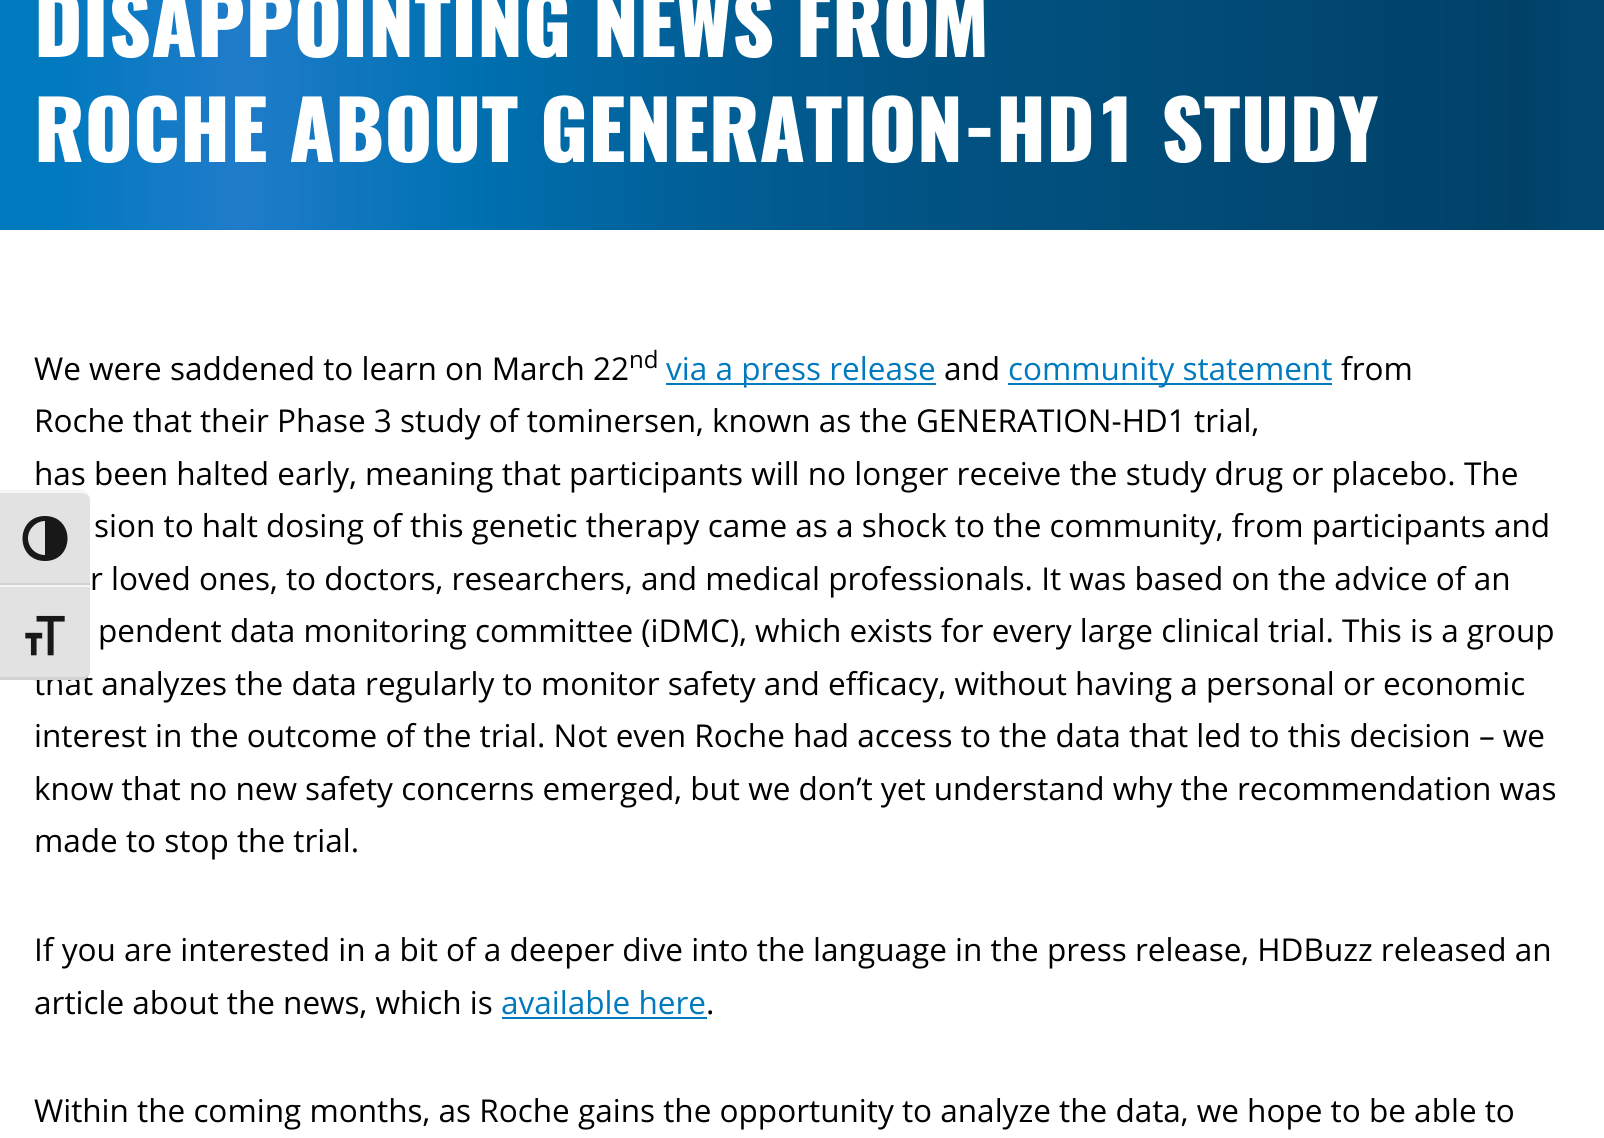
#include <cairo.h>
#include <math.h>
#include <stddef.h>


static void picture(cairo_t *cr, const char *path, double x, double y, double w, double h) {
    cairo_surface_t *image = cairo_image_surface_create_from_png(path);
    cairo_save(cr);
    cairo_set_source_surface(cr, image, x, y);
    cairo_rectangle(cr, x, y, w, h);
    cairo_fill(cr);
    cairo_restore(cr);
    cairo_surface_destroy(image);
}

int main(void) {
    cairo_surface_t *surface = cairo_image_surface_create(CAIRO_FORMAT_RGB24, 1604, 1138);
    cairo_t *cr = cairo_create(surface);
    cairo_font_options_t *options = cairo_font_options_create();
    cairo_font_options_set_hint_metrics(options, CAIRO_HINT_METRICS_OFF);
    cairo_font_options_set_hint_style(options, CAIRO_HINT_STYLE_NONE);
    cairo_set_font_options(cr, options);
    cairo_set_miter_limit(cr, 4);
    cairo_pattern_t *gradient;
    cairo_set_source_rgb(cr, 1, 1, 1);
    cairo_paint(cr);
    gradient = cairo_pattern_create_linear(0, 79, 1604, 79);
    cairo_pattern_add_color_stop_rgba(gradient, 0.03, 0, 0.475, 0.749, 1);
    cairo_pattern_add_color_stop_rgba(gradient, 0.15, 0.125, 0.486, 0.792, 1);
    cairo_pattern_add_color_stop_rgba(gradient, 0.29, 0, 0.443, 0.698, 1);
    cairo_pattern_add_color_stop_rgba(gradient, 0.43, 0.004, 0.376, 0.596, 1);
    cairo_pattern_add_color_stop_rgba(gradient, 0.57, 0.004, 0.329, 0.518, 1);
    cairo_pattern_add_color_stop_rgba(gradient, 0.95, 0.004, 0.255, 0.408, 1);
    cairo_pattern_add_color_stop_rgba(gradient, 0.98, 0.004, 0.278, 0.439, 1);
    cairo_set_source(cr, gradient);
    cairo_pattern_destroy(gradient);
    cairo_rectangle(cr, 0, 0, 1604, 230);
    cairo_fill(cr);
    cairo_select_font_face(cr, "Oswald Black", CAIRO_FONT_SLANT_NORMAL, CAIRO_FONT_WEIGHT_NORMAL);
    cairo_set_font_size(cr, 81);
    cairo_set_source_rgb(cr, 1, 1, 1);
    cairo_move_to(cr, 34, 57);
    cairo_show_text(cr, "DISAPPOINTING NEWS FROM");
    cairo_move_to(cr, 34, 162);
    cairo_show_text(cr, "ROCHE ABOUT GENERATION-HD1 STUDY");
    cairo_select_font_face(cr, "Open Sans", CAIRO_FONT_SLANT_NORMAL, CAIRO_FONT_WEIGHT_NORMAL);
    cairo_set_font_size(cr, 31.5);
    cairo_set_source_rgb(cr, 0, 0, 0);
    cairo_move_to(cr, 34, 380);
    cairo_show_text(cr, "We were saddened to learn on March 22");
    cairo_set_font_size(cr, 24);
    cairo_move_to(cr, 629, 368);
    cairo_show_text(cr, "nd");
    cairo_set_source_rgb(cr, 0, 0.475, 0.749);
    cairo_rectangle(cr, 666, 383, 270, 2);
    cairo_fill(cr);
    cairo_set_font_size(cr, 31.5);
    cairo_move_to(cr, 666, 380);
    cairo_show_text(cr, "via a press release");
    cairo_set_source_rgb(cr, 0, 0, 0);
    cairo_move_to(cr, 944, 380);
    cairo_show_text(cr, "and");
    cairo_set_source_rgb(cr, 0, 0.475, 0.749);
    cairo_rectangle(cr, 1008, 383, 324, 2);
    cairo_fill(cr);
    cairo_move_to(cr, 1008, 380);
    cairo_show_text(cr, "community statement");
    cairo_set_source_rgb(cr, 0, 0, 0);
    cairo_move_to(cr, 1341, 380);
    cairo_show_text(cr, "from");
    cairo_move_to(cr, 34, 432);
    cairo_show_text(cr, "Roche that their Phase 3 study of tominersen, known as the GENERATION-HD1 trial,");
    cairo_move_to(cr, 34, 485);
    cairo_show_text(cr, "has been halted early, meaning that participants will no longer receive the study drug or placebo. The");
    cairo_move_to(cr, 94, 537);
    cairo_show_text(cr, "sion to halt dosing of this genetic therapy came as a shock to the community, from participants and");
    cairo_move_to(cr, 90, 590);
    cairo_show_text(cr, "r loved ones, to doctors, researchers, and medical professionals. It was based on the advice of an");
    cairo_move_to(cr, 98, 642);
    cairo_show_text(cr, "pendent data monitoring committee (iDMC), which exists for every large clinical trial. This is a group");
    cairo_move_to(cr, 34, 695);
    cairo_show_text(cr, "that analyzes the data regularly to monitor safety and efficacy, without having a personal or economic");
    cairo_move_to(cr, 34, 747);
    cairo_show_text(cr, "interest in the outcome of the trial. Not even Roche had access to the data that led to this decision – we");
    cairo_move_to(cr, 34, 800);
    cairo_show_text(cr, "know that no new safety concerns emerged, but we don’t yet understand why the recommendation was");
    cairo_move_to(cr, 34, 852);
    cairo_show_text(cr, "made to stop the trial.");
    cairo_move_to(cr, 34, 961);
    cairo_show_text(cr, "If you are interested in a bit of a deeper dive into the language in the press release, HDBuzz released an");
    cairo_move_to(cr, 34, 1014);
    cairo_show_text(cr, "article about the news, which is");
    cairo_set_source_rgb(cr, 0, 0.475, 0.749);
    cairo_move_to(cr, 501, 1014);
    cairo_show_text(cr, "available here");
    cairo_rectangle(cr, 502, 1017, 205, 2);
    cairo_fill(cr);
    cairo_set_source_rgb(cr, 0, 0, 0);
    cairo_move_to(cr, 706, 1014);
    cairo_show_text(cr, ".");
    cairo_move_to(cr, 34, 1122);
    cairo_show_text(cr, "Within the coming months, as Roche gains the opportunity to analyze the data, we hope to be able to");
    cairo_set_source_rgb(cr, 0.886, 0.886, 0.886);
    cairo_new_path(cr);
    cairo_move_to(cr, 0, 491);
    cairo_line_to(cr, 81, 491);
    cairo_curve_to(cr, 86, 491, 90, 495, 90, 500);
    cairo_line_to(cr, 90, 585);
    cairo_line_to(cr, 0, 585);
    cairo_close_path(cr);
    cairo_fill(cr);
    cairo_set_source_rgb(cr, 0.961, 0.961, 0.961);
    cairo_new_path(cr);
    cairo_move_to(cr, 0, 493);
    cairo_line_to(cr, 81, 493);
    cairo_curve_to(cr, 86, 493, 90, 496, 90, 500);
    cairo_curve_to(cr, 90, 496, 87, 492, 84, 490);
    cairo_line_to(cr, 0, 490);
    cairo_close_path(cr);
    cairo_fill(cr);
    cairo_set_source_rgb(cr, 0.824, 0.824, 0.824);
    cairo_rectangle(cr, 0, 583, 90, 2);
    cairo_fill(cr);
    cairo_set_source_rgb(cr, 0.094, 0.094, 0.094);
    cairo_new_path(cr);
    cairo_move_to(cr, 45, 516);
    cairo_curve_to(cr, 15, 516, 15, 561, 45, 561);
    cairo_curve_to(cr, 75, 561, 75, 516, 45, 516);
    cairo_close_path(cr);
    cairo_move_to(cr, 28, 538);
    cairo_curve_to(cr, 28, 529, 36, 521, 45, 521);
    cairo_line_to(cr, 45, 555);
    cairo_curve_to(cr, 36, 555, 28, 548, 28, 538);
    cairo_close_path(cr);
    cairo_fill(cr);
    cairo_set_source_rgb(cr, 0.886, 0.886, 0.886);
    cairo_new_path(cr);
    cairo_move_to(cr, 0, 585);
    cairo_line_to(cr, 90, 585);
    cairo_line_to(cr, 90, 671);
    cairo_curve_to(cr, 90, 676, 86, 680, 81, 680);
    cairo_line_to(cr, 0, 680);
    cairo_close_path(cr);
    cairo_fill(cr);
    cairo_set_source_rgb(cr, 0.961, 0.961, 0.961);
    cairo_rectangle(cr, 0, 585, 90, 2);
    cairo_fill(cr);
    cairo_set_source_rgb(cr, 0.824, 0.824, 0.824);
    cairo_new_path(cr);
    cairo_move_to(cr, 84, 680);
    cairo_curve_to(cr, 87, 678, 90, 674, 90, 670);
    cairo_curve_to(cr, 90, 674, 86, 677, 81, 677);
    cairo_line_to(cr, 0, 677);
    cairo_line_to(cr, 0, 680);
    cairo_close_path(cr);
    cairo_fill(cr);
    picture(cr, "img1.png", 25, 615, 40, 41);
    cairo_surface_write_to_png(surface, "page.png");
    cairo_font_options_destroy(options);
    cairo_destroy(cr);
    cairo_surface_destroy(surface);
    return 0;
}
